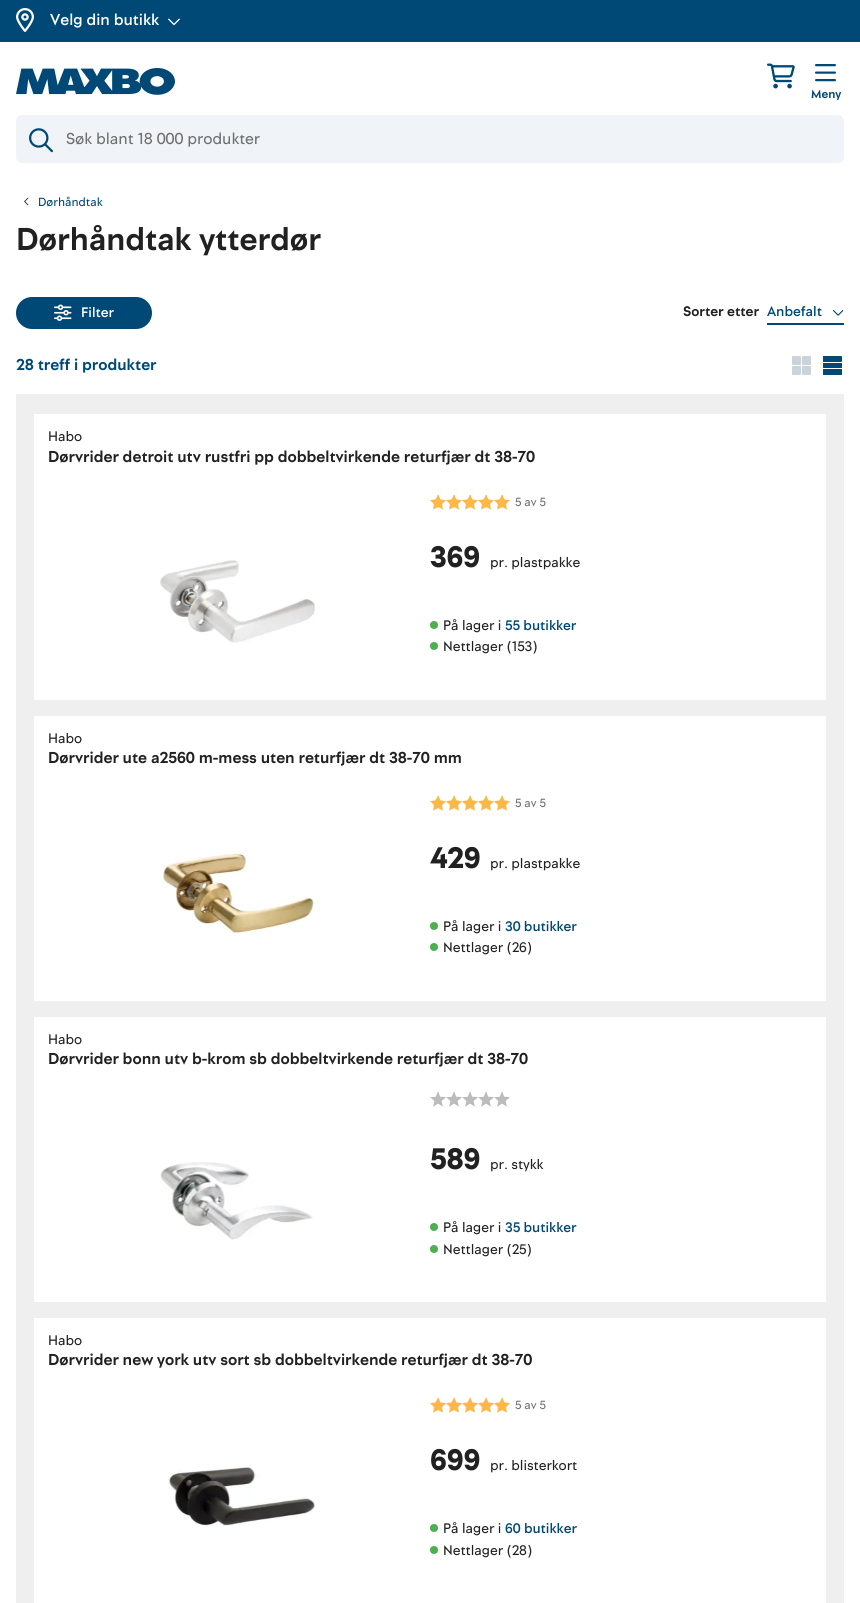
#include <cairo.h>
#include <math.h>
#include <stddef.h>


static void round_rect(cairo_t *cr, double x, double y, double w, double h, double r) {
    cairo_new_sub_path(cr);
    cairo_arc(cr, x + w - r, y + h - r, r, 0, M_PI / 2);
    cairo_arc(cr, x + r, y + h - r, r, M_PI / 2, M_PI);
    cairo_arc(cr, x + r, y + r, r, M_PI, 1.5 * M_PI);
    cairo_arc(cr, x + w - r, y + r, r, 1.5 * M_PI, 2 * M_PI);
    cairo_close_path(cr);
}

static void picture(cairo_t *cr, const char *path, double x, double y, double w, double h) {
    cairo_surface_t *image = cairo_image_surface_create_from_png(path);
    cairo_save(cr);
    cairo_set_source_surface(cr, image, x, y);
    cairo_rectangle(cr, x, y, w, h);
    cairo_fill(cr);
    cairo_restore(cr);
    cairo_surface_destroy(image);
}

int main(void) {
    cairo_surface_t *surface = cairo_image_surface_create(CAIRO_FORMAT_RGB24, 860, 1603);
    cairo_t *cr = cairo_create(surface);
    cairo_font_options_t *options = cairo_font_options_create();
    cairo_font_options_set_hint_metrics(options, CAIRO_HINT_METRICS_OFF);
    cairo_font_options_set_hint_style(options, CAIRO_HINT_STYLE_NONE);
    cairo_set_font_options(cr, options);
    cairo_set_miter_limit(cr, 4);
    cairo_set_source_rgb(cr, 1, 1, 1);
    cairo_paint(cr);
    cairo_set_source_rgb(cr, 0, 0.286, 0.463);
    cairo_rectangle(cr, 0, 0, 860, 42);
    cairo_fill(cr);
    picture(cr, "img1.png", 16, 8, 18, 24);
    cairo_select_font_face(cr, "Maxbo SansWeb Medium", CAIRO_FONT_SLANT_NORMAL, CAIRO_FONT_WEIGHT_NORMAL);
    cairo_set_font_size(cr, 16);
    cairo_set_source_rgb(cr, 1, 1, 1);
    cairo_move_to(cr, 50, 25);
    cairo_show_text(cr, "Velg din butikk");
    picture(cr, "img2.png", 168, 18, 12, 8);
    picture(cr, "img3.png", 16, 68, 159, 27);
    picture(cr, "img4.png", 767, 63, 28, 26);
    picture(cr, "img5.png", 815, 64, 21, 18);
    cairo_select_font_face(cr, "Maxbo SansWeb", CAIRO_FONT_SLANT_NORMAL, CAIRO_FONT_WEIGHT_BOLD);
    cairo_set_font_size(cr, 12);
    cairo_set_source_rgb(cr, 0, 0.286, 0.463);
    cairo_move_to(cr, 811, 98);
    cairo_show_text(cr, "Meny");
    cairo_set_source_rgb(cr, 0.941, 0.953, 0.969);
    round_rect(cr, 16, 115, 828, 48, 6);
    cairo_fill(cr);
    picture(cr, "img6.png", 29, 128, 24, 25);
    cairo_select_font_face(cr, "Maxbo SansWeb", CAIRO_FONT_SLANT_NORMAL, CAIRO_FONT_WEIGHT_NORMAL);
    cairo_set_font_size(cr, 16);
    cairo_set_source_rgb(cr, 0.435, 0.435, 0.435);
    cairo_move_to(cr, 66, 144);
    cairo_show_text(cr, "Søk blant 18 000 produkter");
    picture(cr, "img7.png", 24, 197, 5, 9);
    cairo_set_font_size(cr, 12);
    cairo_set_source_rgb(cr, 0, 0.286, 0.463);
    cairo_move_to(cr, 38, 206);
    cairo_show_text(cr, "Dørhåndtak");
    cairo_select_font_face(cr, "Maxbo SansWeb", CAIRO_FONT_SLANT_NORMAL, CAIRO_FONT_WEIGHT_BOLD);
    cairo_set_font_size(cr, 32);
    cairo_set_source_rgb(cr, 0.129, 0.129, 0.129);
    cairo_move_to(cr, 16, 250);
    cairo_show_text(cr, "Dørhåndtak ytterdør");
    cairo_set_source_rgb(cr, 0, 0.286, 0.463);
    round_rect(cr, 16, 297, 136, 32, 16);
    cairo_fill(cr);
    picture(cr, "img8.png", 54, 304, 18, 17);
    cairo_select_font_face(cr, "Maxbo SansWeb Medium", CAIRO_FONT_SLANT_NORMAL, CAIRO_FONT_WEIGHT_NORMAL);
    cairo_set_font_size(cr, 14);
    cairo_set_source_rgb(cr, 1, 1, 1);
    cairo_move_to(cr, 81, 317);
    cairo_show_text(cr, "Filter");
    cairo_select_font_face(cr, "Maxbo SansWeb", CAIRO_FONT_SLANT_NORMAL, CAIRO_FONT_WEIGHT_BOLD);
    cairo_set_source_rgb(cr, 0.129, 0.129, 0.129);
    cairo_move_to(cr, 683, 316);
    cairo_show_text(cr, "Sorter etter");
    cairo_set_source_rgb(cr, 0, 0.286, 0.463);
    cairo_rectangle(cr, 767, 323, 77, 2);
    cairo_fill(cr);
    cairo_select_font_face(cr, "Maxbo SansWeb Medium", CAIRO_FONT_SLANT_NORMAL, CAIRO_FONT_WEIGHT_NORMAL);
    cairo_move_to(cr, 767, 316);
    cairo_show_text(cr, "Anbefalt");
    picture(cr, "img9.png", 833, 310, 11, 6);
    cairo_select_font_face(cr, "Maxbo SansWeb", CAIRO_FONT_SLANT_NORMAL, CAIRO_FONT_WEIGHT_BOLD);
    cairo_set_font_size(cr, 16);
    cairo_move_to(cr, 16, 370);
    cairo_show_text(cr, "28 treff i produkter");
    cairo_set_source_rgb(cr, 0.796, 0.827, 0.855);
    round_rect(cr, 792, 356, 9, 9, 1);
    cairo_fill(cr);
    round_rect(cr, 802, 356, 9, 9, 1);
    cairo_fill(cr);
    round_rect(cr, 792, 366, 9, 9, 1);
    cairo_fill(cr);
    round_rect(cr, 802, 366, 9, 9, 1);
    cairo_fill(cr);
    picture(cr, "img10.png", 823, 356, 19, 19);
    cairo_set_source_rgb(cr, 0.937, 0.937, 0.937);
    cairo_rectangle(cr, 16, 394, 828, 1209);
    cairo_fill(cr);
    cairo_set_source_rgb(cr, 1, 1, 1);
    cairo_rectangle(cr, 34, 414, 792, 286);
    cairo_fill(cr);
    cairo_select_font_face(cr, "Maxbo SansWeb", CAIRO_FONT_SLANT_NORMAL, CAIRO_FONT_WEIGHT_NORMAL);
    cairo_set_font_size(cr, 14);
    cairo_set_source_rgb(cr, 0.129, 0.129, 0.129);
    cairo_move_to(cr, 48, 441);
    cairo_show_text(cr, "Habo");
    cairo_select_font_face(cr, "Maxbo SansWeb", CAIRO_FONT_SLANT_NORMAL, CAIRO_FONT_WEIGHT_BOLD);
    cairo_set_font_size(cr, 16);
    cairo_move_to(cr, 48, 462);
    cairo_show_text(cr, "Dørvrider detroit utv rustfri pp dobbeltvirkende returfjær dt 38-70");
    picture(cr, "img11.png", 160, 560, 155, 83);
    picture(cr, "img12.png", 430, 494, 16, 16);
    picture(cr, "img12.png", 446, 494, 16, 16);
    picture(cr, "img12.png", 462, 494, 16, 16);
    picture(cr, "img12.png", 478, 494, 16, 16);
    picture(cr, "img12.png", 494, 494, 16, 16);
    cairo_select_font_face(cr, "Maxbo SansWeb", CAIRO_FONT_SLANT_NORMAL, CAIRO_FONT_WEIGHT_NORMAL);
    cairo_set_font_size(cr, 12);
    cairo_set_source_rgb(cr, 0.435, 0.435, 0.435);
    cairo_move_to(cr, 515, 506);
    cairo_show_text(cr, "5 av 5");
    cairo_select_font_face(cr, "Maxbo SansWeb Black", CAIRO_FONT_SLANT_NORMAL, CAIRO_FONT_WEIGHT_NORMAL);
    cairo_set_font_size(cr, 30);
    cairo_set_source_rgb(cr, 0.129, 0.129, 0.129);
    cairo_move_to(cr, 430, 567);
    cairo_show_text(cr, "369");
    cairo_select_font_face(cr, "Maxbo SansWeb", CAIRO_FONT_SLANT_NORMAL, CAIRO_FONT_WEIGHT_NORMAL);
    cairo_set_font_size(cr, 14);
    cairo_move_to(cr, 490, 567);
    cairo_show_text(cr, "pr. plastpakke");
    cairo_set_source_rgb(cr, 0.298, 0.686, 0.314);
    cairo_new_path(cr);
    cairo_arc(cr, 434, 625, 4, 0, 2 * M_PI);
    cairo_fill(cr);
    cairo_set_source_rgb(cr, 0.129, 0.129, 0.129);
    cairo_move_to(cr, 443, 630);
    cairo_show_text(cr, "På lager i");
    cairo_select_font_face(cr, "Maxbo SansWeb Medium", CAIRO_FONT_SLANT_NORMAL, CAIRO_FONT_WEIGHT_NORMAL);
    cairo_set_source_rgb(cr, 0, 0.286, 0.463);
    cairo_move_to(cr, 505, 630);
    cairo_show_text(cr, "55 butikker");
    cairo_set_source_rgb(cr, 0.298, 0.686, 0.314);
    cairo_new_path(cr);
    cairo_arc(cr, 434, 646, 4, 0, 2 * M_PI);
    cairo_fill(cr);
    cairo_select_font_face(cr, "Maxbo SansWeb", CAIRO_FONT_SLANT_NORMAL, CAIRO_FONT_WEIGHT_NORMAL);
    cairo_set_source_rgb(cr, 0.129, 0.129, 0.129);
    cairo_move_to(cr, 443, 651);
    cairo_show_text(cr, "Nettlager (153)");
    cairo_set_source_rgb(cr, 1, 1, 1);
    cairo_rectangle(cr, 34, 716, 792, 285);
    cairo_fill(cr);
    cairo_set_source_rgb(cr, 0.129, 0.129, 0.129);
    cairo_move_to(cr, 48, 743);
    cairo_show_text(cr, "Habo");
    cairo_select_font_face(cr, "Maxbo SansWeb", CAIRO_FONT_SLANT_NORMAL, CAIRO_FONT_WEIGHT_BOLD);
    cairo_set_font_size(cr, 16);
    cairo_move_to(cr, 48, 763);
    cairo_show_text(cr, "Dørvrider ute a2560 m-mess uten returfjær dt 38-70 mm");
    picture(cr, "img13.png", 163, 852, 152, 81);
    picture(cr, "img12.png", 430, 795, 16, 16);
    picture(cr, "img12.png", 446, 795, 16, 16);
    picture(cr, "img12.png", 462, 795, 16, 16);
    picture(cr, "img12.png", 478, 795, 16, 16);
    picture(cr, "img12.png", 494, 795, 16, 16);
    cairo_select_font_face(cr, "Maxbo SansWeb", CAIRO_FONT_SLANT_NORMAL, CAIRO_FONT_WEIGHT_NORMAL);
    cairo_set_font_size(cr, 12);
    cairo_set_source_rgb(cr, 0.435, 0.435, 0.435);
    cairo_move_to(cr, 515, 807);
    cairo_show_text(cr, "5 av 5");
    cairo_select_font_face(cr, "Maxbo SansWeb Black", CAIRO_FONT_SLANT_NORMAL, CAIRO_FONT_WEIGHT_NORMAL);
    cairo_set_font_size(cr, 30);
    cairo_set_source_rgb(cr, 0.129, 0.129, 0.129);
    cairo_move_to(cr, 430, 868);
    cairo_show_text(cr, "429");
    cairo_select_font_face(cr, "Maxbo SansWeb", CAIRO_FONT_SLANT_NORMAL, CAIRO_FONT_WEIGHT_NORMAL);
    cairo_set_font_size(cr, 14);
    cairo_move_to(cr, 490, 868);
    cairo_show_text(cr, "pr. plastpakke");
    cairo_set_source_rgb(cr, 0.298, 0.686, 0.314);
    cairo_new_path(cr);
    cairo_arc(cr, 434, 926, 4, 0, 2 * M_PI);
    cairo_fill(cr);
    cairo_set_source_rgb(cr, 0.129, 0.129, 0.129);
    cairo_move_to(cr, 443, 931);
    cairo_show_text(cr, "På lager i");
    cairo_select_font_face(cr, "Maxbo SansWeb Medium", CAIRO_FONT_SLANT_NORMAL, CAIRO_FONT_WEIGHT_NORMAL);
    cairo_set_source_rgb(cr, 0, 0.286, 0.463);
    cairo_move_to(cr, 505, 931);
    cairo_show_text(cr, "30 butikker");
    cairo_set_source_rgb(cr, 0.298, 0.686, 0.314);
    cairo_new_path(cr);
    cairo_arc(cr, 434, 947, 4, 0, 2 * M_PI);
    cairo_fill(cr);
    cairo_select_font_face(cr, "Maxbo SansWeb", CAIRO_FONT_SLANT_NORMAL, CAIRO_FONT_WEIGHT_NORMAL);
    cairo_set_source_rgb(cr, 0.129, 0.129, 0.129);
    cairo_move_to(cr, 443, 952);
    cairo_show_text(cr, "Nettlager (26)");
    cairo_set_source_rgb(cr, 1, 1, 1);
    cairo_rectangle(cr, 34, 1017, 792, 285);
    cairo_fill(cr);
    cairo_set_source_rgb(cr, 0.129, 0.129, 0.129);
    cairo_move_to(cr, 48, 1044);
    cairo_show_text(cr, "Habo");
    cairo_select_font_face(cr, "Maxbo SansWeb", CAIRO_FONT_SLANT_NORMAL, CAIRO_FONT_WEIGHT_BOLD);
    cairo_set_font_size(cr, 16);
    cairo_move_to(cr, 48, 1064);
    cairo_show_text(cr, "Dørvrider bonn utv b-krom sb dobbeltvirkende returfjær dt 38-70");
    picture(cr, "img14.png", 160, 1162, 153, 78);
    picture(cr, "img15.png", 430, 1091, 16, 16);
    picture(cr, "img15.png", 446, 1091, 16, 16);
    picture(cr, "img15.png", 462, 1091, 16, 16);
    picture(cr, "img15.png", 478, 1091, 16, 16);
    picture(cr, "img15.png", 494, 1091, 16, 16);
    cairo_select_font_face(cr, "Maxbo SansWeb Black", CAIRO_FONT_SLANT_NORMAL, CAIRO_FONT_WEIGHT_NORMAL);
    cairo_set_font_size(cr, 30);
    cairo_move_to(cr, 430, 1169);
    cairo_show_text(cr, "589");
    cairo_select_font_face(cr, "Maxbo SansWeb", CAIRO_FONT_SLANT_NORMAL, CAIRO_FONT_WEIGHT_NORMAL);
    cairo_set_font_size(cr, 14);
    cairo_move_to(cr, 490, 1169);
    cairo_show_text(cr, "pr. stykk");
    cairo_set_source_rgb(cr, 0.298, 0.686, 0.314);
    cairo_new_path(cr);
    cairo_arc(cr, 434, 1227, 4, 0, 2 * M_PI);
    cairo_fill(cr);
    cairo_set_source_rgb(cr, 0.129, 0.129, 0.129);
    cairo_move_to(cr, 443, 1232);
    cairo_show_text(cr, "På lager i");
    cairo_select_font_face(cr, "Maxbo SansWeb Medium", CAIRO_FONT_SLANT_NORMAL, CAIRO_FONT_WEIGHT_NORMAL);
    cairo_set_source_rgb(cr, 0, 0.286, 0.463);
    cairo_move_to(cr, 505, 1232);
    cairo_show_text(cr, "35 butikker");
    cairo_set_source_rgb(cr, 0.298, 0.686, 0.314);
    cairo_new_path(cr);
    cairo_arc(cr, 434, 1249, 4, 0, 2 * M_PI);
    cairo_fill(cr);
    cairo_select_font_face(cr, "Maxbo SansWeb", CAIRO_FONT_SLANT_NORMAL, CAIRO_FONT_WEIGHT_NORMAL);
    cairo_set_source_rgb(cr, 0.129, 0.129, 0.129);
    cairo_move_to(cr, 443, 1254);
    cairo_show_text(cr, "Nettlager (25)");
    cairo_set_source_rgb(cr, 1, 1, 1);
    cairo_rectangle(cr, 34, 1318, 792, 285);
    cairo_fill(cr);
    cairo_set_source_rgb(cr, 0.129, 0.129, 0.129);
    cairo_move_to(cr, 48, 1345);
    cairo_show_text(cr, "Habo");
    cairo_select_font_face(cr, "Maxbo SansWeb", CAIRO_FONT_SLANT_NORMAL, CAIRO_FONT_WEIGHT_BOLD);
    cairo_set_font_size(cr, 16);
    cairo_move_to(cr, 48, 1365);
    cairo_show_text(cr, "Dørvrider new york utv sort sb dobbeltvirkende returfjær dt 38-70");
    picture(cr, "img16.png", 168, 1465, 147, 62);
    picture(cr, "img12.png", 430, 1397, 16, 16);
    picture(cr, "img12.png", 446, 1397, 16, 16);
    picture(cr, "img12.png", 462, 1397, 16, 16);
    picture(cr, "img12.png", 478, 1397, 16, 16);
    picture(cr, "img12.png", 494, 1397, 16, 16);
    cairo_select_font_face(cr, "Maxbo SansWeb", CAIRO_FONT_SLANT_NORMAL, CAIRO_FONT_WEIGHT_NORMAL);
    cairo_set_font_size(cr, 12);
    cairo_set_source_rgb(cr, 0.435, 0.435, 0.435);
    cairo_move_to(cr, 515, 1409);
    cairo_show_text(cr, "5 av 5");
    cairo_select_font_face(cr, "Maxbo SansWeb Black", CAIRO_FONT_SLANT_NORMAL, CAIRO_FONT_WEIGHT_NORMAL);
    cairo_set_font_size(cr, 30);
    cairo_set_source_rgb(cr, 0.129, 0.129, 0.129);
    cairo_move_to(cr, 430, 1470);
    cairo_show_text(cr, "699");
    cairo_select_font_face(cr, "Maxbo SansWeb", CAIRO_FONT_SLANT_NORMAL, CAIRO_FONT_WEIGHT_NORMAL);
    cairo_set_font_size(cr, 14);
    cairo_move_to(cr, 490, 1470);
    cairo_show_text(cr, "pr. blisterkort");
    cairo_set_source_rgb(cr, 0.298, 0.686, 0.314);
    cairo_new_path(cr);
    cairo_arc(cr, 434, 1528, 4, 0, 2 * M_PI);
    cairo_fill(cr);
    cairo_set_source_rgb(cr, 0.129, 0.129, 0.129);
    cairo_move_to(cr, 443, 1533);
    cairo_show_text(cr, "På lager i");
    cairo_select_font_face(cr, "Maxbo SansWeb Medium", CAIRO_FONT_SLANT_NORMAL, CAIRO_FONT_WEIGHT_NORMAL);
    cairo_set_source_rgb(cr, 0, 0.286, 0.463);
    cairo_move_to(cr, 505, 1533);
    cairo_show_text(cr, "60 butikker");
    cairo_set_source_rgb(cr, 0.298, 0.686, 0.314);
    cairo_new_path(cr);
    cairo_arc(cr, 434, 1550, 4, 0, 2 * M_PI);
    cairo_fill(cr);
    cairo_select_font_face(cr, "Maxbo SansWeb", CAIRO_FONT_SLANT_NORMAL, CAIRO_FONT_WEIGHT_NORMAL);
    cairo_set_source_rgb(cr, 0.129, 0.129, 0.129);
    cairo_move_to(cr, 443, 1555);
    cairo_show_text(cr, "Nettlager (28)");
    cairo_surface_write_to_png(surface, "page.png");
    cairo_font_options_destroy(options);
    cairo_destroy(cr);
    cairo_surface_destroy(surface);
    return 0;
}
